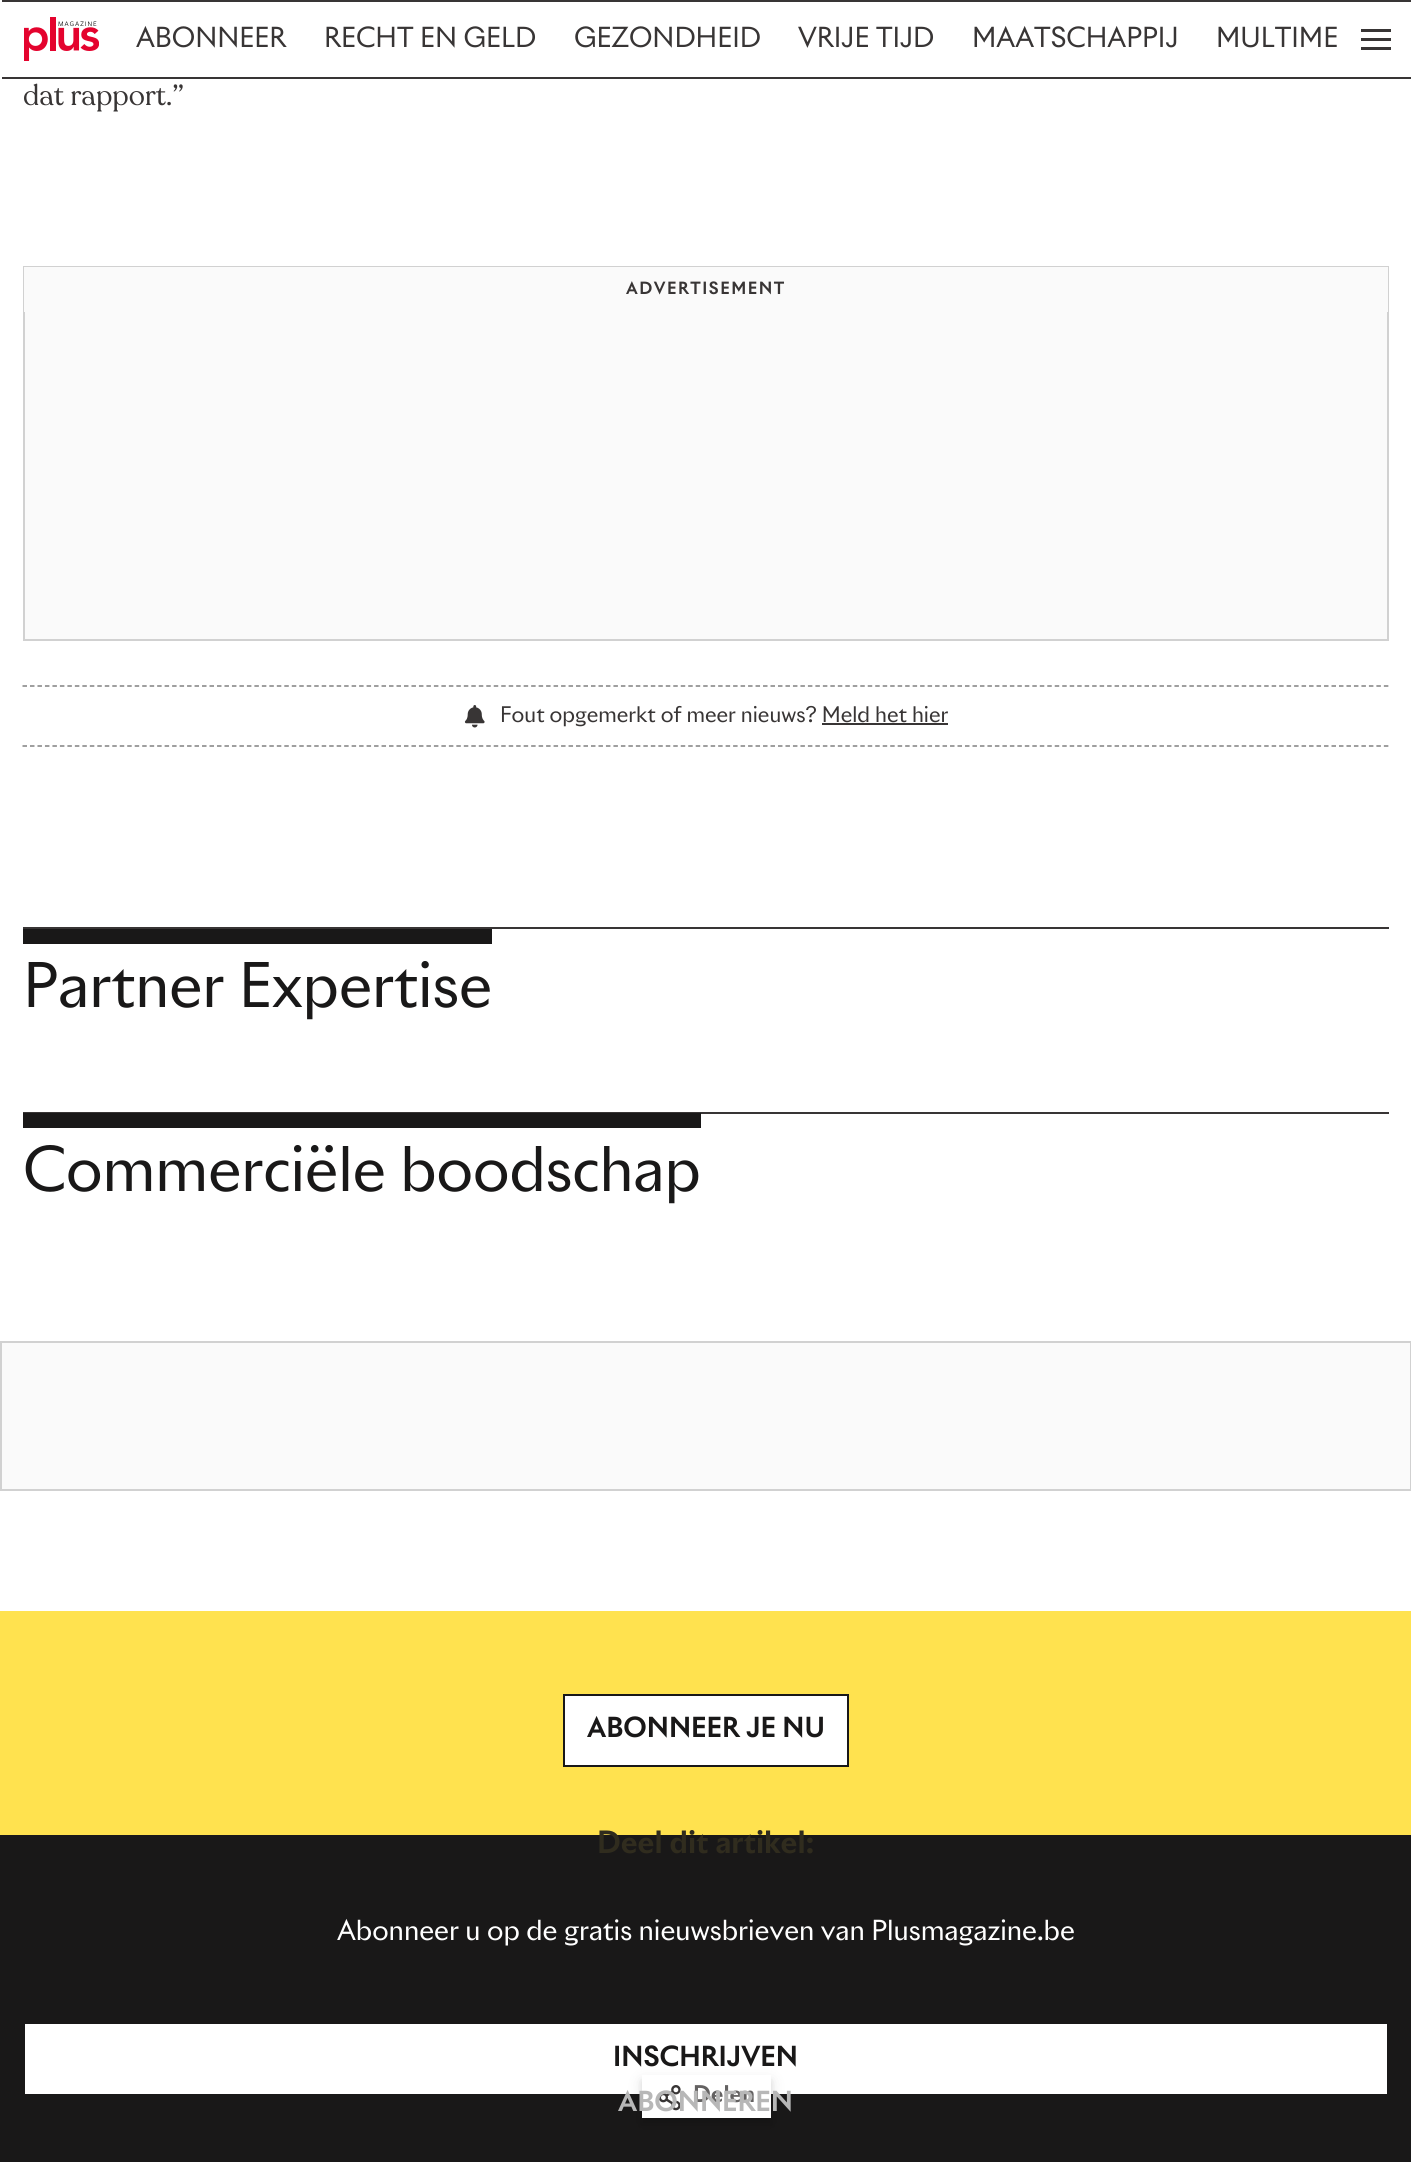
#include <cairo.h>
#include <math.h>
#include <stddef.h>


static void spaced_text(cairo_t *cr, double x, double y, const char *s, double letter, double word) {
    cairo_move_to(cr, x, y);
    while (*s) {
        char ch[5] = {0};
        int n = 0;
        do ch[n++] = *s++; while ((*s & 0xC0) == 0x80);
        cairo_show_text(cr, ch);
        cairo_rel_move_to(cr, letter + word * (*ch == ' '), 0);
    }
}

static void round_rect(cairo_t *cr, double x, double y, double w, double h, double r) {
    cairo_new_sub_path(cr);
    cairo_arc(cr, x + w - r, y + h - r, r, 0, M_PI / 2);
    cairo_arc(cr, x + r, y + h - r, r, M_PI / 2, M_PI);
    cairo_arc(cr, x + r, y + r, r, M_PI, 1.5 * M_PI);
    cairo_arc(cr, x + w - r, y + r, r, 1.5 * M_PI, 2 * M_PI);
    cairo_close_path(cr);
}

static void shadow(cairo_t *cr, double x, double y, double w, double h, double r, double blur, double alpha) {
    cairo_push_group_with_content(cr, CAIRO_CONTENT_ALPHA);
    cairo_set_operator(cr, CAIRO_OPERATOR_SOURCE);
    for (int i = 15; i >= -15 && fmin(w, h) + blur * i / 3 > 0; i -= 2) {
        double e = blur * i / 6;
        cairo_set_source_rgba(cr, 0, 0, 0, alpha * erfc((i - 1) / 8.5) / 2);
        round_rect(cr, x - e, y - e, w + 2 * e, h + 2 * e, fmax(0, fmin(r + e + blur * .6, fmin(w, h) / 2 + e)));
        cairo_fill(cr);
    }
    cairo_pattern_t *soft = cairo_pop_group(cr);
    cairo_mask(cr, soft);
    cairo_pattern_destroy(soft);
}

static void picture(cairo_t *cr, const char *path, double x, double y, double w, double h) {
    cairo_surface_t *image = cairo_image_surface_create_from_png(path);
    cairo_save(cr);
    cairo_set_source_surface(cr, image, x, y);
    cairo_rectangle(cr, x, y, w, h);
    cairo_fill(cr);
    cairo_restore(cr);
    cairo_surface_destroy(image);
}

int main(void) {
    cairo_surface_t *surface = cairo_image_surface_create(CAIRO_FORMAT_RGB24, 1411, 2162);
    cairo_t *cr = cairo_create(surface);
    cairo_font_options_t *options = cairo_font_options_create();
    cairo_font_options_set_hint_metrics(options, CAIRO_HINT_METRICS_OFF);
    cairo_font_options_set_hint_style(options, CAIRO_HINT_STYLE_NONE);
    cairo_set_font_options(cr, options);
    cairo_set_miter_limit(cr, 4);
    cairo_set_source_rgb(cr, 1, 1, 1);
    cairo_paint(cr);
    cairo_set_source_rgb(cr, 0.22, 0.208, 0.208);
    cairo_rectangle(cr, 2, 0, 1409, 2);
    cairo_fill(cr);
    cairo_rectangle(cr, 2, 77, 1409, 2);
    cairo_fill(cr);
    picture(cr, "img1.png", 24, 17, 75, 44);
    cairo_select_font_face(cr, "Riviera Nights", CAIRO_FONT_SLANT_NORMAL, CAIRO_FONT_WEIGHT_NORMAL);
    cairo_set_font_size(cr, 27);
    cairo_move_to(cr, 136, 47);
    cairo_show_text(cr, "ABONNEER");
    cairo_move_to(cr, 324, 47);
    cairo_show_text(cr, "RECHT EN GELD");
    cairo_move_to(cr, 574, 47);
    cairo_show_text(cr, "GEZONDHEID");
    cairo_move_to(cr, 798, 47);
    cairo_show_text(cr, "VRIJE TIJD");
    cairo_move_to(cr, 972, 47);
    cairo_show_text(cr, "MAATSCHAPPIJ");
    cairo_move_to(cr, 1216, 47);
    cairo_show_text(cr, "MULTIME");
    cairo_rectangle(cr, 1361, 29, 30, 3);
    cairo_fill(cr);
    cairo_rectangle(cr, 1361, 38, 30, 3);
    cairo_fill(cr);
    cairo_rectangle(cr, 1361, 47, 30, 3);
    cairo_fill(cr);
    cairo_set_source_rgb(cr, 0.098, 0.094, 0.094);
    cairo_rectangle(cr, 0, 1835, 1411, 327);
    cairo_fill(cr);
    cairo_set_source_rgb(cr, 1, 1, 1);
    cairo_rectangle(cr, 25, 2024, 1362, 70);
    cairo_fill(cr);
    cairo_set_source_rgb(cr, 0, 0, 0);
    shadow(cr, 642, 2081, 129, 43, 0, 3, 0.1);
    shadow(cr, 642, 2081, 129, 43, 0, 7.5, 0.1);
    cairo_set_source_rgb(cr, 1, 1, 1);
    cairo_rectangle(cr, 642, 2075, 129, 43);
    cairo_fill(cr);
    picture(cr, "img3.png", 658, 2085, 23, 26);
    cairo_select_font_face(cr, "Riviera Nights", CAIRO_FONT_SLANT_NORMAL, CAIRO_FONT_WEIGHT_BOLD);
    cairo_set_font_size(cr, 22.5);
    cairo_set_source_rgb(cr, 0.392, 0.384, 0.384);
    cairo_move_to(cr, 693, 2102);
    cairo_show_text(cr, "Delen");
    cairo_set_font_size(cr, 27);
    cairo_set_source_rgb(cr, 0.718, 0.718, 0.718);
    cairo_move_to(cr, 618, 2111);
    cairo_show_text(cr, "ABONNEREN");
    cairo_select_font_face(cr, "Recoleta", CAIRO_FONT_SLANT_NORMAL, CAIRO_FONT_WEIGHT_NORMAL);
    cairo_set_font_size(cr, 28.5);
    cairo_set_source_rgb(cr, 0.22, 0.208, 0.208);
    cairo_move_to(cr, 23, 105);
    cairo_show_text(cr, "dat rapport.”");
    cairo_set_source_rgb(cr, 0.98, 0.98, 0.98);
    cairo_rectangle(cr, 25, 312, 1362, 327);
    cairo_fill(cr);
    cairo_rectangle(cr, 24, 267, 1364, 373);
    cairo_set_source_rgb(cr, 0.82, 0.82, 0.82);
    cairo_stroke(cr);
    cairo_set_source_rgb(cr, 0.98, 0.98, 0.98);
    cairo_rectangle(cr, 24, 267, 1364, 45);
    cairo_fill(cr);
    cairo_select_font_face(cr, "Riviera Nights", CAIRO_FONT_SLANT_NORMAL, CAIRO_FONT_WEIGHT_BOLD);
    cairo_set_font_size(cr, 16.5);
    cairo_set_source_rgb(cr, 0.22, 0.208, 0.208);
    spaced_text(cr, 626, 294, "ADVERTISEMENT", 1.5, 0);
    cairo_new_path(cr);
    cairo_move_to(cr, 22.5, 686);
    cairo_line_to(cr, 1389, 686);
    cairo_set_source_rgb(cr, 0.502, 0.502, 0.502);
    cairo_set_line_width(cr, 1.5);
    cairo_set_dash(cr, (double[]){4.5, 2.98}, 2, 0);
    cairo_stroke(cr);
    cairo_new_path(cr);
    cairo_move_to(cr, 22.5, 746);
    cairo_line_to(cr, 1389, 746);
    cairo_stroke(cr);
    picture(cr, "img2.png", 464, 705, 21, 23);
    cairo_select_font_face(cr, "Riviera Nights", CAIRO_FONT_SLANT_NORMAL, CAIRO_FONT_WEIGHT_NORMAL);
    cairo_set_font_size(cr, 21);
    cairo_set_source_rgb(cr, 0.22, 0.208, 0.208);
    cairo_move_to(cr, 500, 722);
    cairo_show_text(cr, "Fout opgemerkt of meer nieuws? Meld het hier");
    cairo_rectangle(cr, 822, 723, 126, 2);
    cairo_fill(cr);
    cairo_set_source_rgb(cr, 1, 0.886, 0.31);
    cairo_rectangle(cr, 0, 1611, 1411, 224);
    cairo_fill(cr);
    cairo_select_font_face(cr, "Riviera Nights", CAIRO_FONT_SLANT_NORMAL, CAIRO_FONT_WEIGHT_BOLD);
    cairo_set_font_size(cr, 30);
    cairo_set_source_rgb(cr, 0.188, 0.173, 0.118);
    cairo_move_to(cr, 597, 1853);
    cairo_show_text(cr, "Deel dit artikel:");
    cairo_set_source_rgb(cr, 0.22, 0.208, 0.208);
    cairo_rectangle(cr, 23, 927, 1366, 2);
    cairo_fill(cr);
    cairo_set_source_rgb(cr, 0.098, 0.094, 0.094);
    cairo_rectangle(cr, 23, 929, 469, 15);
    cairo_fill(cr);
    cairo_select_font_face(cr, "Riviera Nights", CAIRO_FONT_SLANT_NORMAL, CAIRO_FONT_WEIGHT_NORMAL);
    cairo_set_font_size(cr, 60);
    cairo_move_to(cr, 23, 1007);
    cairo_show_text(cr, "Partner Expertise");
    cairo_set_source_rgb(cr, 0.22, 0.208, 0.208);
    cairo_rectangle(cr, 23, 1112, 1366, 2);
    cairo_fill(cr);
    cairo_set_source_rgb(cr, 0.098, 0.094, 0.094);
    cairo_rectangle(cr, 23, 1113, 678, 15);
    cairo_fill(cr);
    cairo_move_to(cr, 23, 1191);
    cairo_show_text(cr, "Commerciële boodschap");
    cairo_set_source_rgb(cr, 0.98, 0.98, 0.98);
    cairo_rectangle(cr, 1, 1342, 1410, 148);
    cairo_fill_preserve(cr);
    cairo_set_source_rgb(cr, 0.82, 0.82, 0.82);
    cairo_set_line_width(cr, 2);
    cairo_set_dash(cr, NULL, 0, 0);
    cairo_stroke(cr);
    cairo_set_source_rgb(cr, 1, 1, 1);
    cairo_rectangle(cr, 564, 1695, 284, 71);
    cairo_fill_preserve(cr);
    cairo_set_source_rgb(cr, 0.098, 0.094, 0.094);
    cairo_stroke(cr);
    cairo_select_font_face(cr, "Riviera Nights", CAIRO_FONT_SLANT_NORMAL, CAIRO_FONT_WEIGHT_BOLD);
    cairo_set_font_size(cr, 27);
    cairo_move_to(cr, 587, 1737);
    cairo_show_text(cr, "ABONNEER JE NU");
    cairo_select_font_face(cr, "Riviera Nights", CAIRO_FONT_SLANT_NORMAL, CAIRO_FONT_WEIGHT_NORMAL);
    cairo_set_source_rgb(cr, 1, 1, 1);
    cairo_move_to(cr, 337, 1940);
    cairo_show_text(cr, "Abonneer u op de gratis nieuwsbrieven van Plusmagazine.be");
    cairo_select_font_face(cr, "Riviera Nights", CAIRO_FONT_SLANT_NORMAL, CAIRO_FONT_WEIGHT_BOLD);
    cairo_set_source_rgb(cr, 0.098, 0.094, 0.094);
    cairo_move_to(cr, 613, 2066);
    cairo_show_text(cr, "INSCHRIJVEN");
    cairo_surface_write_to_png(surface, "page.png");
    cairo_font_options_destroy(options);
    cairo_destroy(cr);
    cairo_surface_destroy(surface);
    return 0;
}
